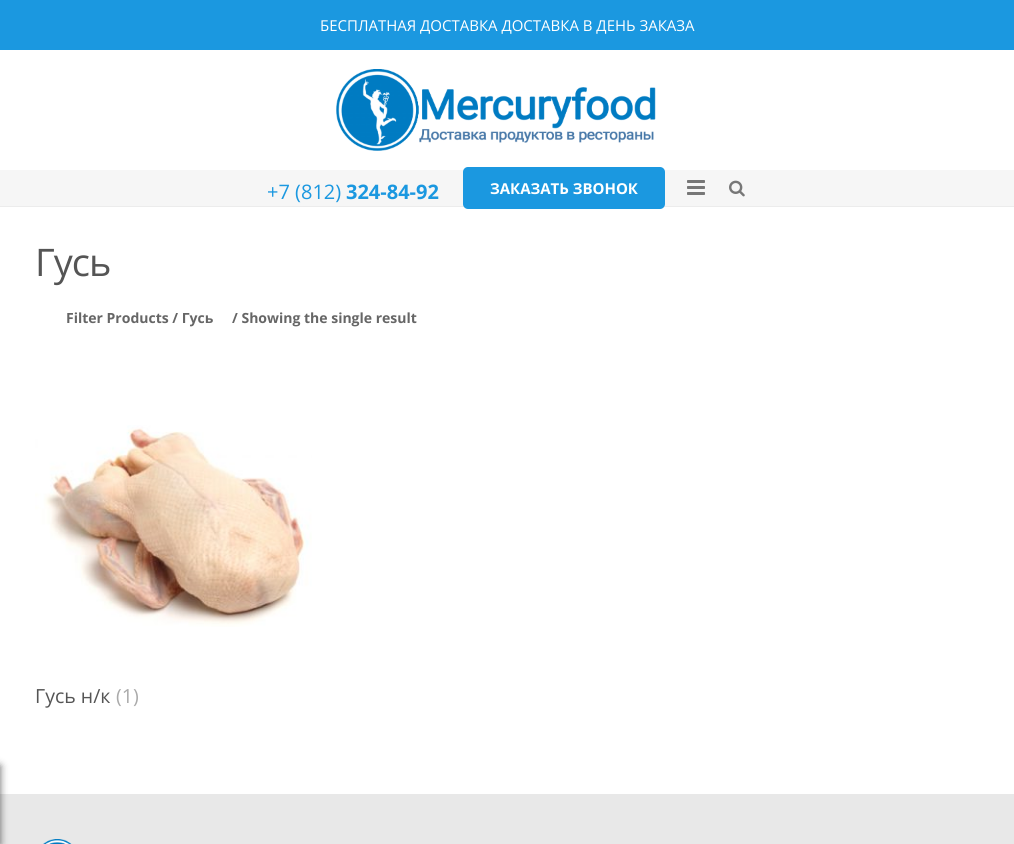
#include <cairo.h>
#include <math.h>
#include <stddef.h>


static void spaced_text(cairo_t *cr, double x, double y, const char *s, double letter, double word) {
    cairo_move_to(cr, x, y);
    while (*s) {
        char ch[5] = {0};
        int n = 0;
        do ch[n++] = *s++; while ((*s & 0xC0) == 0x80);
        cairo_show_text(cr, ch);
        cairo_rel_move_to(cr, letter + word * (*ch == ' '), 0);
    }
}

static void round_rect(cairo_t *cr, double x, double y, double w, double h, double r) {
    cairo_new_sub_path(cr);
    cairo_arc(cr, x + w - r, y + h - r, r, 0, M_PI / 2);
    cairo_arc(cr, x + r, y + h - r, r, M_PI / 2, M_PI);
    cairo_arc(cr, x + r, y + r, r, M_PI, 1.5 * M_PI);
    cairo_arc(cr, x + w - r, y + r, r, 1.5 * M_PI, 2 * M_PI);
    cairo_close_path(cr);
}

static void shadow(cairo_t *cr, double x, double y, double w, double h, double r, double blur, double alpha) {
    cairo_push_group_with_content(cr, CAIRO_CONTENT_ALPHA);
    cairo_set_operator(cr, CAIRO_OPERATOR_SOURCE);
    for (int i = 15; i >= -15 && fmin(w, h) + blur * i / 3 > 0; i -= 2) {
        double e = blur * i / 6;
        cairo_set_source_rgba(cr, 0, 0, 0, alpha * erfc((i - 1) / 8.5) / 2);
        round_rect(cr, x - e, y - e, w + 2 * e, h + 2 * e, fmax(0, fmin(r + e + blur * .6, fmin(w, h) / 2 + e)));
        cairo_fill(cr);
    }
    cairo_pattern_t *soft = cairo_pop_group(cr);
    cairo_mask(cr, soft);
    cairo_pattern_destroy(soft);
}

static void picture(cairo_t *cr, const char *path, double x, double y, double w, double h) {
    cairo_surface_t *image = cairo_image_surface_create_from_png(path);
    cairo_save(cr);
    cairo_set_source_surface(cr, image, x, y);
    cairo_rectangle(cr, x, y, w, h);
    cairo_fill(cr);
    cairo_restore(cr);
    cairo_surface_destroy(image);
}

int main(void) {
    cairo_surface_t *surface = cairo_image_surface_create(CAIRO_FORMAT_RGB24, 1014, 844);
    cairo_t *cr = cairo_create(surface);
    cairo_font_options_t *options = cairo_font_options_create();
    cairo_font_options_set_hint_metrics(options, CAIRO_HINT_METRICS_OFF);
    cairo_font_options_set_hint_style(options, CAIRO_HINT_STYLE_NONE);
    cairo_set_font_options(cr, options);
    cairo_set_miter_limit(cr, 4);
    cairo_set_source_rgb(cr, 1, 1, 1);
    cairo_paint(cr);
    cairo_set_source_rgb(cr, 0.106, 0.596, 0.878);
    cairo_rectangle(cr, 0, 0, 1014, 50);
    cairo_fill(cr);
    cairo_select_font_face(cr, "Open Sans", CAIRO_FONT_SLANT_NORMAL, CAIRO_FONT_WEIGHT_NORMAL);
    cairo_set_font_size(cr, 15);
    cairo_set_source_rgb(cr, 1, 1, 1);
    cairo_move_to(cr, 320, 31);
    cairo_show_text(cr, "БЕСПЛАТНАЯ ДОСТАВКА ДОСТАВКА В ДЕНЬ ЗАКАЗА");
    picture(cr, "img1.png", 336, 69, 320, 82);
    cairo_set_source_rgb(cr, 0.922, 0.922, 0.922);
    cairo_rectangle(cr, 0, 206, 1014, 1);
    cairo_fill(cr);
    cairo_set_source_rgb(cr, 0.961, 0.961, 0.961);
    cairo_rectangle(cr, 0, 170, 1014, 36);
    cairo_fill(cr);
    cairo_set_font_size(cr, 20);
    cairo_set_source_rgb(cr, 0.106, 0.596, 0.878);
    cairo_move_to(cr, 267, 199);
    cairo_show_text(cr, "+7 (812)");
    cairo_select_font_face(cr, "Open Sans", CAIRO_FONT_SLANT_NORMAL, CAIRO_FONT_WEIGHT_BOLD);
    cairo_move_to(cr, 346, 199);
    cairo_show_text(cr, "324-84-92");
    round_rect(cr, 463, 167, 202, 42, 5);
    cairo_fill(cr);
    cairo_set_font_size(cr, 15);
    cairo_set_source_rgb(cr, 1, 1, 1);
    cairo_move_to(cr, 490, 194);
    cairo_show_text(cr, "ЗАКАЗАТЬ ЗВОНОК");
    picture(cr, "img2.png", 687, 180, 18, 15);
    picture(cr, "img3.png", 729, 180, 16, 17);
    cairo_select_font_face(cr, "Open Sans", CAIRO_FONT_SLANT_NORMAL, CAIRO_FONT_WEIGHT_NORMAL);
    cairo_set_font_size(cr, 38);
    cairo_set_source_rgb(cr, 0.333, 0.333, 0.333);
    spaced_text(cr, 35, 276, "Гусь", -1, 0);
    cairo_select_font_face(cr, "Open Sans", CAIRO_FONT_SLANT_NORMAL, CAIRO_FONT_WEIGHT_BOLD);
    cairo_set_font_size(cr, 14);
    cairo_set_source_rgb(cr, 0.4, 0.4, 0.4);
    cairo_move_to(cr, 66, 323);
    cairo_show_text(cr, "Filter Products / Гусь");
    cairo_move_to(cr, 232, 323);
    cairo_show_text(cr, "/ Showing the single result");
    picture(cr, "img4.png", 35, 425, 277, 202);
    cairo_select_font_face(cr, "Open Sans", CAIRO_FONT_SLANT_NORMAL, CAIRO_FONT_WEIGHT_NORMAL);
    cairo_set_font_size(cr, 19.5);
    cairo_set_source_rgb(cr, 0.333, 0.333, 0.333);
    cairo_move_to(cr, 35, 703);
    cairo_show_text(cr, "Гусь н/к");
    cairo_set_source_rgb(cr, 0.667, 0.667, 0.667);
    cairo_move_to(cr, 116, 703);
    cairo_show_text(cr, "(1)");
    cairo_set_source_rgb(cr, 0.91, 0.91, 0.91);
    cairo_rectangle(cr, 0, 794, 1014, 50);
    cairo_fill(cr);
    cairo_set_source_rgb(cr, 0.196, 0.196, 0.196);
    shadow(cr, -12, 766, 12, 78, 0, 4, 0.75);
    picture(cr, "img5.png", 43, 839, 29, 5);
    cairo_surface_write_to_png(surface, "page.png");
    cairo_font_options_destroy(options);
    cairo_destroy(cr);
    cairo_surface_destroy(surface);
    return 0;
}
